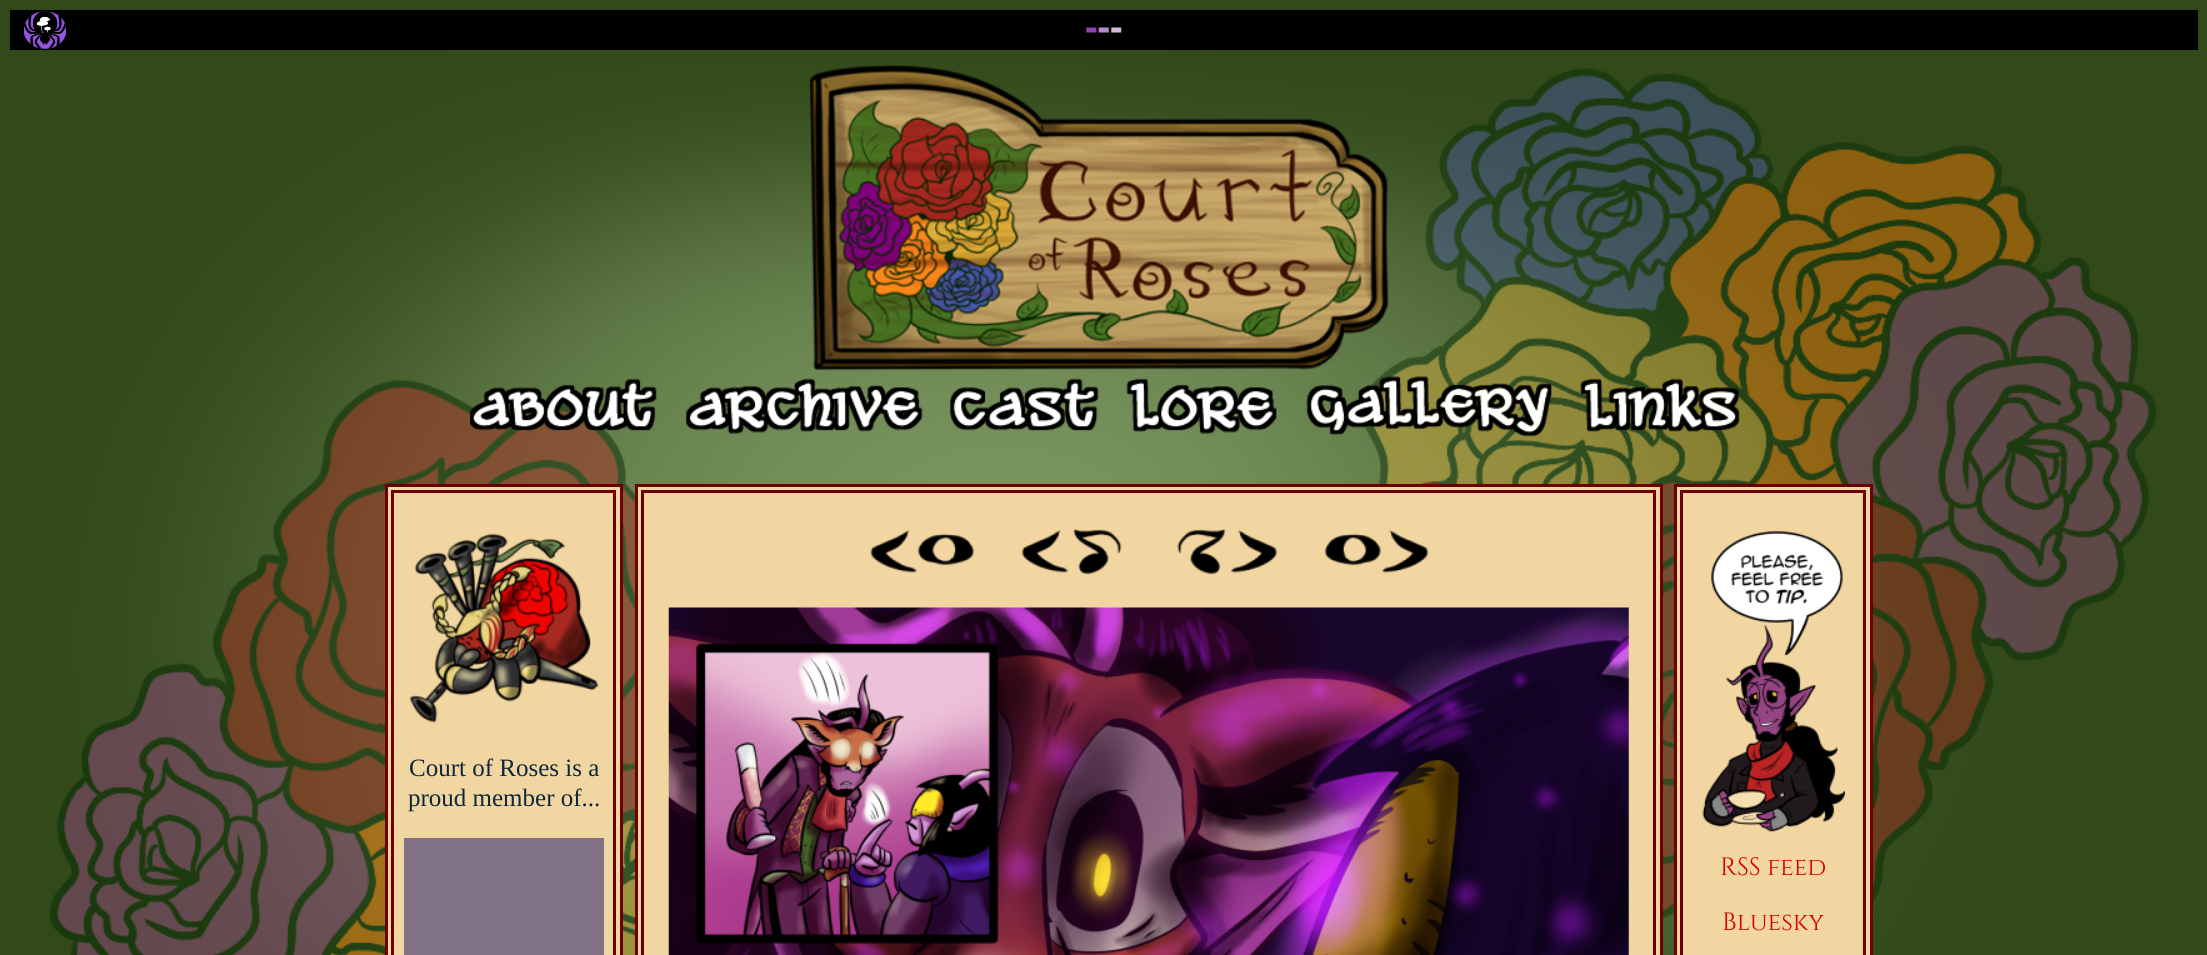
#include <cairo.h>
#include <math.h>
#include <stddef.h>


static void picture(cairo_t *cr, const char *path, double x, double y, double w, double h) {
    cairo_surface_t *image = cairo_image_surface_create_from_png(path);
    cairo_save(cr);
    cairo_set_source_surface(cr, image, x, y);
    cairo_rectangle(cr, x, y, w, h);
    cairo_fill(cr);
    cairo_restore(cr);
    cairo_surface_destroy(image);
}

int main(void) {
    cairo_surface_t *surface = cairo_image_surface_create(CAIRO_FORMAT_RGB24, 2207, 955);
    cairo_t *cr = cairo_create(surface);
    cairo_font_options_t *options = cairo_font_options_create();
    cairo_font_options_set_hint_metrics(options, CAIRO_HINT_METRICS_OFF);
    cairo_font_options_set_hint_style(options, CAIRO_HINT_STYLE_NONE);
    cairo_set_font_options(cr, options);
    cairo_set_miter_limit(cr, 4);
    cairo_set_source_rgb(cr, 1, 1, 1);
    cairo_paint(cr);
    picture(cr, "img1.png", 0, 0, 2207, 955);
    cairo_set_source_rgb(cr, 0, 0, 0);
    cairo_rectangle(cr, 10, 10, 2188, 40);
    cairo_fill(cr);
    picture(cr, "img2.png", 24, 11, 42, 38);
    picture(cr, "img3.png", 1086, 27, 36, 6);
    picture(cr, "img4.png", 809, 65, 580, 306);
    picture(cr, "img5.png", 469, 378, 188, 53);
    picture(cr, "img6.png", 686, 378, 237, 56);
    picture(cr, "img7.png", 949, 378, 150, 53);
    picture(cr, "img8.png", 1126, 378, 151, 56);
    picture(cr, "img9.png", 1306, 376, 246, 61);
    picture(cr, "img10.png", 1580, 378, 160, 54);
    cairo_set_source_rgb(cr, 0.949, 0.839, 0.631);
    cairo_rectangle(cr, 386.5, 485.5, 235, 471);
    cairo_fill_preserve(cr);
    cairo_set_source_rgb(cr, 0.427, 0, 0);
    cairo_set_line_width(cr, 3);
    cairo_stroke(cr);
    cairo_rectangle(cr, 392.5, 491.5, 222, 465);
    cairo_stroke(cr);
    picture(cr, "img11.png", 409, 533, 190, 190);
    cairo_select_font_face(cr, "Liberation Serif", CAIRO_FONT_SLANT_NORMAL, CAIRO_FONT_WEIGHT_NORMAL);
    cairo_set_font_size(cr, 25);
    cairo_set_source_rgb(cr, 0.063, 0.149, 0.231);
    cairo_move_to(cr, 409, 776);
    cairo_show_text(cr, "Court of Roses is a");
    cairo_move_to(cr, 408, 806);
    cairo_show_text(cr, "proud member of...");
    cairo_set_source_rgb(cr, 0.502, 0.447, 0.518);
    cairo_rectangle(cr, 404, 838, 200, 117);
    cairo_fill(cr);
    cairo_set_source_rgb(cr, 0.949, 0.839, 0.631);
    cairo_rectangle(cr, 636.5, 485.5, 1025, 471);
    cairo_fill_preserve(cr);
    cairo_set_source_rgb(cr, 0.427, 0, 0);
    cairo_stroke(cr);
    cairo_rectangle(cr, 642.5, 491.5, 1012, 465);
    cairo_stroke(cr);
    picture(cr, "img12.png", 870, 530, 104, 43);
    picture(cr, "img13.png", 1021, 528, 101, 47);
    picture(cr, "img14.png", 1177, 528, 101, 47);
    picture(cr, "img15.png", 1324, 530, 105, 43);
    picture(cr, "img16.png", 668, 607, 961, 348);
    cairo_set_source_rgb(cr, 0.949, 0.839, 0.631);
    cairo_rectangle(cr, 1675.5, 485.5, 196, 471);
    cairo_fill_preserve(cr);
    cairo_set_source_rgb(cr, 0.427, 0, 0);
    cairo_stroke(cr);
    cairo_rectangle(cr, 1681.5, 491.5, 183, 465);
    cairo_stroke(cr);
    picture(cr, "img17.png", 1702, 531, 143, 301);
    cairo_select_font_face(cr, "Cinzel", CAIRO_FONT_SLANT_NORMAL, CAIRO_FONT_WEIGHT_NORMAL);
    cairo_set_source_rgb(cr, 0.839, 0, 0);
    cairo_move_to(cr, 1720, 875);
    cairo_show_text(cr, "RSS feed");
    cairo_move_to(cr, 1722, 930);
    cairo_show_text(cr, "Bluesky");
    cairo_surface_write_to_png(surface, "page.png");
    cairo_font_options_destroy(options);
    cairo_destroy(cr);
    cairo_surface_destroy(surface);
    return 0;
}
